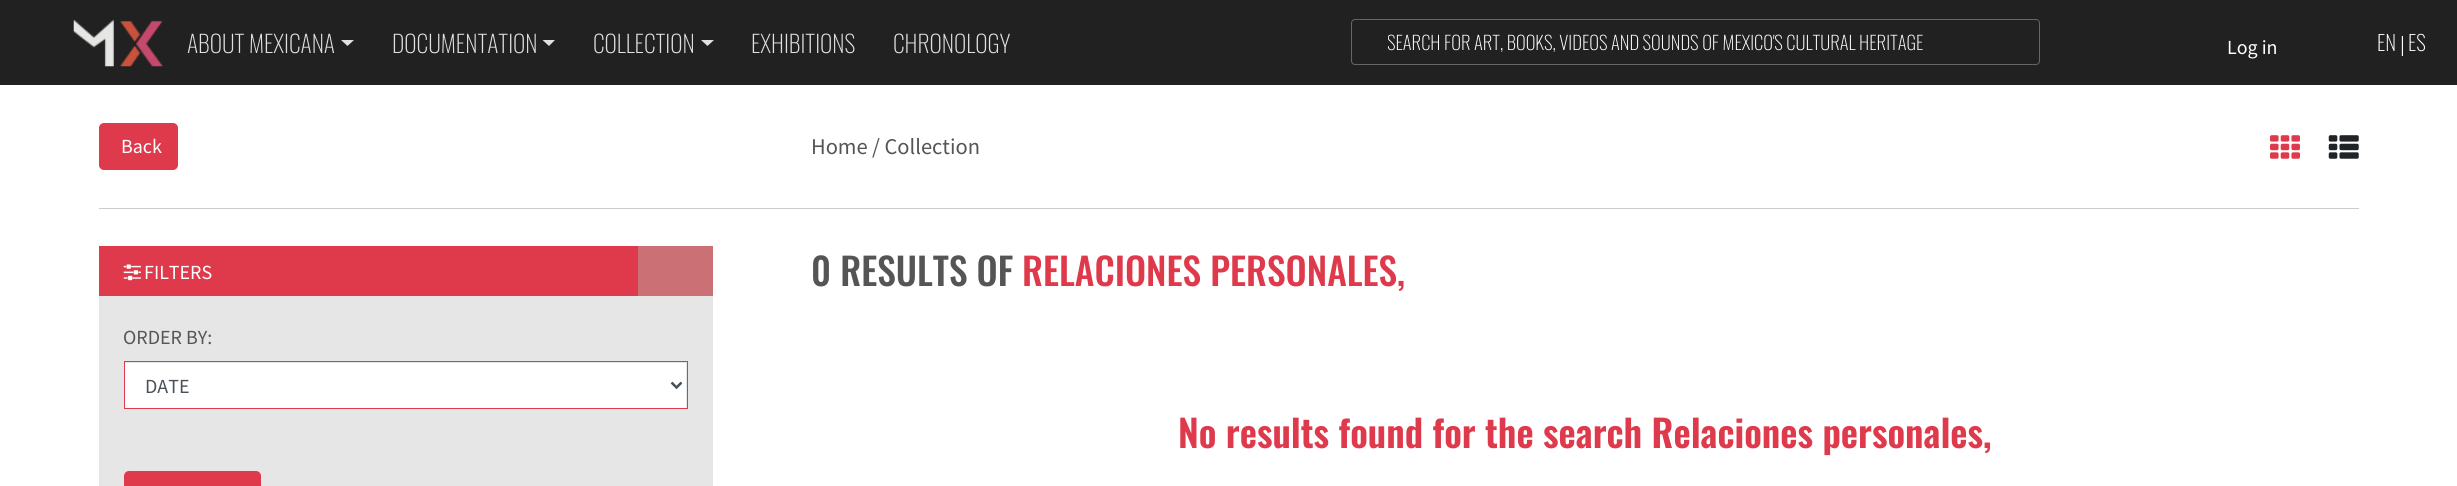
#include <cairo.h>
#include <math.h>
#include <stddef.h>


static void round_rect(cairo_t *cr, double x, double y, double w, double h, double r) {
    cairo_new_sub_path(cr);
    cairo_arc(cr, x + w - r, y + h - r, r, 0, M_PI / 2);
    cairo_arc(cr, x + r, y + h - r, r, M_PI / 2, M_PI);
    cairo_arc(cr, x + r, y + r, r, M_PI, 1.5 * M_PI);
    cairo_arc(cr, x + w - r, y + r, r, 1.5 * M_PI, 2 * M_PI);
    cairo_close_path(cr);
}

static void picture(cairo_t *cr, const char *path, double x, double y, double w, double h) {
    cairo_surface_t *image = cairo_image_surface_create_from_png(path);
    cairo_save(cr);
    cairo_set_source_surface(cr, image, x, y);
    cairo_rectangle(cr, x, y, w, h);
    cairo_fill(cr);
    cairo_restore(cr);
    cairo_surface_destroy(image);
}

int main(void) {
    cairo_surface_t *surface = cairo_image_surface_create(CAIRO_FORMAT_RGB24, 2457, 486);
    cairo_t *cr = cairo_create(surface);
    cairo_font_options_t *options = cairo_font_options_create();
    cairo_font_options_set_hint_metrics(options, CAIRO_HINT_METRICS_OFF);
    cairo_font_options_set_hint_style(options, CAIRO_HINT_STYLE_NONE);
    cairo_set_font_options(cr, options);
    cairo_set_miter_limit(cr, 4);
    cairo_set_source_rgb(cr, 1, 1, 1);
    cairo_paint(cr);
    cairo_set_source_rgb(cr, 0.129, 0.129, 0.129);
    cairo_rectangle(cr, 0, 0, 2457, 85);
    cairo_fill(cr);
    picture(cr, "img1.png", 73, 19, 90, 48);
    cairo_select_font_face(cr, "Oswald ExtraLight", CAIRO_FONT_SLANT_NORMAL, CAIRO_FONT_WEIGHT_NORMAL);
    cairo_set_font_size(cr, 23.75);
    cairo_set_source_rgb(cr, 0.882, 0.882, 0.882);
    cairo_move_to(cr, 187, 53);
    cairo_show_text(cr, "ABOUT MEXICANA");
    cairo_new_path(cr);
    cairo_move_to(cr, 341, 40);
    cairo_line_to(cr, 354, 40);
    cairo_line_to(cr, 347.5, 46);
    cairo_close_path(cr);
    cairo_fill(cr);
    cairo_move_to(cr, 392, 53);
    cairo_show_text(cr, "DOCUMENTATION");
    cairo_new_path(cr);
    cairo_move_to(cr, 542.5, 40);
    cairo_line_to(cr, 555, 40);
    cairo_line_to(cr, 549, 46);
    cairo_close_path(cr);
    cairo_fill(cr);
    cairo_move_to(cr, 593, 53);
    cairo_show_text(cr, "COLLECTION");
    cairo_new_path(cr);
    cairo_move_to(cr, 701, 40);
    cairo_line_to(cr, 714, 40);
    cairo_line_to(cr, 707.5, 46);
    cairo_close_path(cr);
    cairo_fill(cr);
    cairo_move_to(cr, 751, 53);
    cairo_show_text(cr, "EXHIBITIONS");
    cairo_move_to(cr, 893, 53);
    cairo_show_text(cr, "CHRONOLOGY");
    cairo_set_font_size(cr, 21);
    cairo_set_source_rgb(cr, 1, 1, 1);
    cairo_move_to(cr, 2377, 51);
    cairo_show_text(cr, "EN");
    cairo_select_font_face(cr, "Source Sans Pro", CAIRO_FONT_SLANT_NORMAL, CAIRO_FONT_WEIGHT_NORMAL);
    cairo_set_font_size(cr, 20);
    cairo_move_to(cr, 2400, 51);
    cairo_show_text(cr, "|");
    cairo_select_font_face(cr, "Oswald ExtraLight", CAIRO_FONT_SLANT_NORMAL, CAIRO_FONT_WEIGHT_NORMAL);
    cairo_set_font_size(cr, 21);
    cairo_move_to(cr, 2408, 51);
    cairo_show_text(cr, "ES");
    round_rect(cr, 1351.5, 19.5, 688, 45, 3.5);
    cairo_set_source_rgb(cr, 0.4, 0.4, 0.4);
    cairo_set_line_width(cr, 1);
    cairo_stroke(cr);
    cairo_save(cr);
    cairo_rectangle(cr, 1388, 28, 600, 27);
    cairo_clip(cr);
    cairo_set_font_size(cr, 18.75);
    cairo_set_source_rgb(cr, 1, 1, 1);
    cairo_move_to(cr, 1387, 50);
    cairo_show_text(cr, "SEARCH FOR ART, BOOKS, VIDEOS AND SOUNDS OF MEXICO'S CULTURAL HERITAGE");
    cairo_restore(cr);
    cairo_select_font_face(cr, "Source Sans Pro", CAIRO_FONT_SLANT_NORMAL, CAIRO_FONT_WEIGHT_NORMAL);
    cairo_set_font_size(cr, 20);
    cairo_set_source_rgb(cr, 1, 1, 1);
    cairo_move_to(cr, 2227, 54);
    cairo_show_text(cr, "Log in");
    cairo_set_source_rgb(cr, 0.8, 0.8, 0.8);
    cairo_rectangle(cr, 99, 208, 2260, 1);
    cairo_fill(cr);
    cairo_set_source_rgb(cr, 0.875, 0.227, 0.298);
    round_rect(cr, 99, 123, 79, 47, 5);
    cairo_fill(cr);
    cairo_set_source_rgb(cr, 1, 1, 1);
    cairo_move_to(cr, 121, 153);
    cairo_show_text(cr, "Back");
    cairo_set_font_size(cr, 22.5);
    cairo_set_source_rgb(cr, 0.333, 0.333, 0.333);
    cairo_move_to(cr, 811, 154);
    cairo_show_text(cr, "Home");
    cairo_move_to(cr, 872, 154);
    cairo_show_text(cr, "/ Collection");
    picture(cr, "img2.png", 2270, 135, 30, 24);
    picture(cr, "img3.png", 2328, 135, 31, 24);
    cairo_select_font_face(cr, "Oswald Medium", CAIRO_FONT_SLANT_NORMAL, CAIRO_FONT_WEIGHT_NORMAL);
    cairo_set_font_size(cr, 37.5);
    cairo_move_to(cr, 811, 286);
    cairo_show_text(cr, "0 RESULTS OF");
    cairo_set_source_rgb(cr, 0.875, 0.227, 0.298);
    cairo_move_to(cr, 1022, 286);
    cairo_show_text(cr, "RELACIONES PERSONALES,");
    cairo_set_source_rgb(cr, 0.902, 0.902, 0.902);
    cairo_rectangle(cr, 99, 296, 614, 190);
    cairo_fill(cr);
    cairo_select_font_face(cr, "Source Sans Pro", CAIRO_FONT_SLANT_NORMAL, CAIRO_FONT_WEIGHT_NORMAL);
    cairo_set_font_size(cr, 20);
    cairo_set_source_rgb(cr, 0.333, 0.333, 0.333);
    cairo_move_to(cr, 123, 344);
    cairo_show_text(cr, "ORDER BY:");
    cairo_set_source_rgb(cr, 1, 1, 1);
    cairo_rectangle(cr, 125, 363, 561, 45);
    cairo_fill(cr);
    cairo_rectangle(cr, 124.5, 361.5, 563, 47);
    cairo_set_source_rgb(cr, 0.875, 0.227, 0.298);
    cairo_stroke(cr);
    cairo_new_path(cr);
    cairo_move_to(cr, 671.5, 382.5);
    cairo_line_to(cr, 676.5, 387.5);
    cairo_line_to(cr, 681.5, 382.5);
    cairo_set_source_rgb(cr, 0.286, 0.314, 0.341);
    cairo_set_line_width(cr, 2.5);
    cairo_stroke(cr);
    cairo_move_to(cr, 145, 393);
    cairo_show_text(cr, "DATE");
    cairo_set_source_rgb(cr, 0.875, 0.227, 0.298);
    round_rect(cr, 124, 471, 137, 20, 5);
    cairo_fill(cr);
    cairo_select_font_face(cr, "Oswald SemiBold", CAIRO_FONT_SLANT_NORMAL, CAIRO_FONT_WEIGHT_NORMAL);
    cairo_set_font_size(cr, 37.5);
    cairo_move_to(cr, 1178, 448);
    cairo_show_text(cr, "No results found for the search Relaciones personales,");
    cairo_rectangle(cr, 99, 246, 539, 50);
    cairo_fill(cr);
    picture(cr, "img4.png", 123, 264, 18, 17);
    cairo_select_font_face(cr, "Source Sans Pro", CAIRO_FONT_SLANT_NORMAL, CAIRO_FONT_WEIGHT_NORMAL);
    cairo_set_font_size(cr, 20);
    cairo_set_source_rgb(cr, 1, 1, 1);
    cairo_move_to(cr, 144, 279);
    cairo_show_text(cr, "FILTERS");
    cairo_set_source_rgb(cr, 0.796, 0.443, 0.463);
    cairo_rectangle(cr, 638, 246, 75, 50);
    cairo_fill(cr);
    cairo_surface_write_to_png(surface, "page.png");
    cairo_font_options_destroy(options);
    cairo_destroy(cr);
    cairo_surface_destroy(surface);
    return 0;
}
